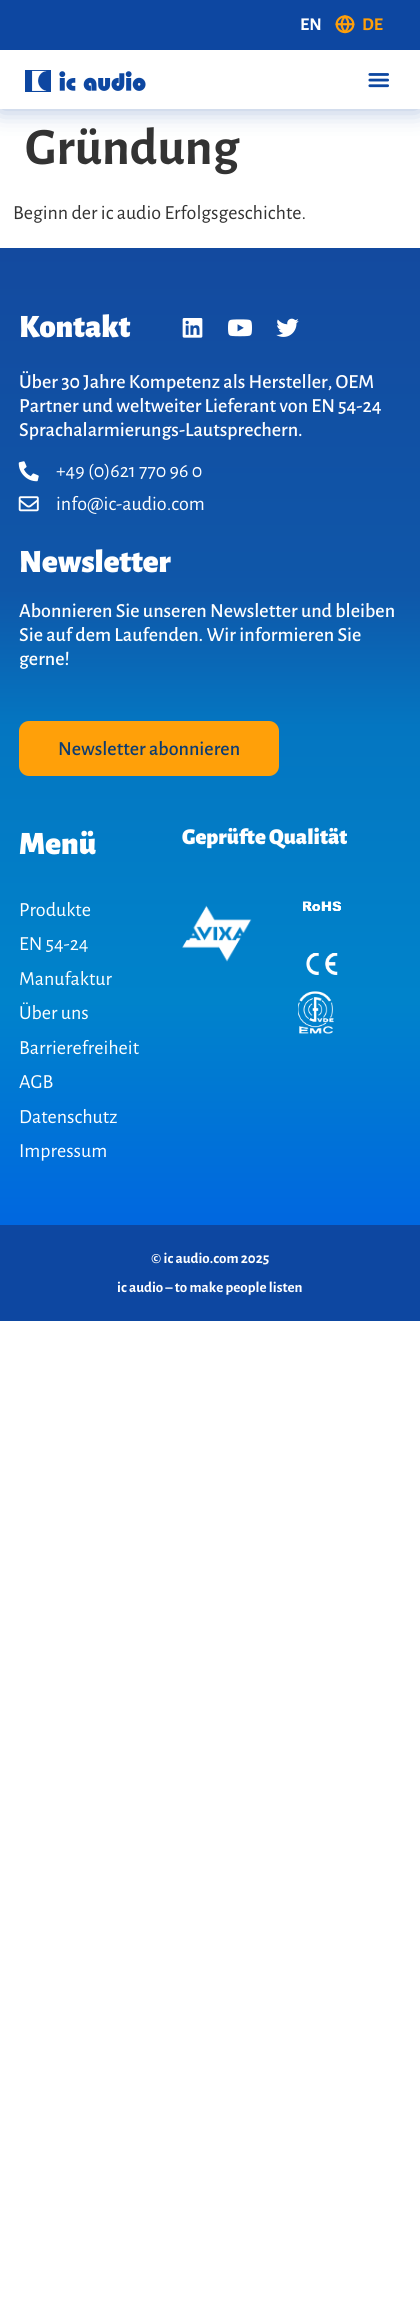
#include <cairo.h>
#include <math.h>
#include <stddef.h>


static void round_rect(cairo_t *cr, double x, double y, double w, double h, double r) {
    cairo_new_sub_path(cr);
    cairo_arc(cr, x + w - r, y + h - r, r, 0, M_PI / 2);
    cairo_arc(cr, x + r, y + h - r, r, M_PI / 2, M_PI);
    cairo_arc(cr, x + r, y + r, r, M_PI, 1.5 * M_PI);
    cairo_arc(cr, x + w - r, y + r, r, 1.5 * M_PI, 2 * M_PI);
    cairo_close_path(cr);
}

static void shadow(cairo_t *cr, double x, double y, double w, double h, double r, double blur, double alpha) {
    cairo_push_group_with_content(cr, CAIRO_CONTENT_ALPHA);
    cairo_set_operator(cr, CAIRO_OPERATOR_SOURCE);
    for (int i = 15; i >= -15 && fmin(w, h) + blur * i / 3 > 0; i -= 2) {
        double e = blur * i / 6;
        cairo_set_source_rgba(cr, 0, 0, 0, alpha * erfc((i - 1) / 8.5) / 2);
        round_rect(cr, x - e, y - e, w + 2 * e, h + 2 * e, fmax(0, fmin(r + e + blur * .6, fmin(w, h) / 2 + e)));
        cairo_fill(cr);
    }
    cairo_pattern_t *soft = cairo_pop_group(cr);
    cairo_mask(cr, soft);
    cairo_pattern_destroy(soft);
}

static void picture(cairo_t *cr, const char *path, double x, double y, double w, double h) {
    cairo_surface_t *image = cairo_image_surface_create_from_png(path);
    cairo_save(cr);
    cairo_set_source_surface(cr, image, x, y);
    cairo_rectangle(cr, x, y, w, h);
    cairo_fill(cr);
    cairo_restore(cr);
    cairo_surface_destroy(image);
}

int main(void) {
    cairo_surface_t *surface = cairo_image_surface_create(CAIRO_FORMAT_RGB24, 420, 2309);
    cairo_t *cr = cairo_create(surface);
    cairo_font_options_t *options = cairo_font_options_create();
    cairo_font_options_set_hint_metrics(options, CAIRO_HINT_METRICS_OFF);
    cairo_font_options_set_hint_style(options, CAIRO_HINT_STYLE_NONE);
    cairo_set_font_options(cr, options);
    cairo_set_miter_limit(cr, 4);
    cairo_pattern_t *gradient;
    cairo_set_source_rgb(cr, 1, 1, 1);
    cairo_paint(cr);
    cairo_set_source_rgb(cr, 0.075, 0.29, 0.624);
    shadow(cr, 0, 50, 420, 59, 0, 12.5, 0.38);
    cairo_set_source_rgb(cr, 1, 1, 1);
    cairo_rectangle(cr, 0, 50, 420, 59);
    cairo_fill(cr);
    picture(cr, "img1.png", 25, 70, 121, 22);
    picture(cr, "img2.png", 368, 73, 21, 15);
    cairo_set_source_rgb(cr, 0.051, 0.278, 0.631);
    cairo_rectangle(cr, 0, 0, 420, 50);
    cairo_fill(cr);
    cairo_select_font_face(cr, "Alegreya Sans", CAIRO_FONT_SLANT_NORMAL, CAIRO_FONT_WEIGHT_BOLD);
    cairo_set_font_size(cr, 18);
    cairo_set_source_rgb(cr, 1, 1, 1);
    cairo_move_to(cr, 300, 30);
    cairo_show_text(cr, "EN");
    picture(cr, "img3.png", 335, 15, 20, 19);
    cairo_set_source_rgb(cr, 1, 0.624, 0.035);
    cairo_move_to(cr, 362, 30);
    cairo_show_text(cr, "DE");
    cairo_set_font_size(cr, 52.5);
    cairo_set_source_rgb(cr, 0.2, 0.2, 0.2);
    cairo_move_to(cr, 25, 164);
    cairo_show_text(cr, "Gründung");
    cairo_select_font_face(cr, "Alegreya Sans", CAIRO_FONT_SLANT_NORMAL, CAIRO_FONT_WEIGHT_NORMAL);
    cairo_set_font_size(cr, 20);
    cairo_move_to(cr, 13, 219);
    cairo_show_text(cr, "Beginn der ic audio Erfolgsgeschichte.");
    gradient = cairo_pattern_create_linear(210, 248, 210, 1225);
    cairo_pattern_add_color_stop_rgba(gradient, 0, 0.075, 0.29, 0.624, 1);
    cairo_pattern_add_color_stop_rgba(gradient, 0.35, 0.059, 0.341, 0.663, 1);
    cairo_pattern_add_color_stop_rgba(gradient, 0.49, 0.016, 0.463, 0.757, 1);
    cairo_pattern_add_color_stop_rgba(gradient, 0.77, 0, 0.514, 0.796, 1);
    cairo_pattern_add_color_stop_rgba(gradient, 1, 0, 0.404, 0.878, 1);
    cairo_set_source(cr, gradient);
    cairo_pattern_destroy(gradient);
    cairo_rectangle(cr, 0, 248, 420, 977);
    cairo_fill(cr);
    cairo_select_font_face(cr, "Alegreya Sans Black", CAIRO_FONT_SLANT_NORMAL, CAIRO_FONT_WEIGHT_NORMAL);
    cairo_set_font_size(cr, 32.5);
    cairo_set_source_rgb(cr, 1, 1, 1);
    cairo_move_to(cr, 19, 337);
    cairo_show_text(cr, "Kontakt");
    picture(cr, "img4.png", 182, 318, 21, 20);
    picture(cr, "img5.png", 228, 319, 24, 18);
    picture(cr, "img6.png", 276, 318, 23, 19);
    cairo_select_font_face(cr, "Alegreya Sans Medium", CAIRO_FONT_SLANT_NORMAL, CAIRO_FONT_WEIGHT_NORMAL);
    cairo_set_font_size(cr, 20);
    cairo_move_to(cr, 19, 388);
    cairo_show_text(cr, "Über 30 Jahre Kompetenz als Hersteller, OEM");
    cairo_move_to(cr, 19, 412);
    cairo_show_text(cr, "Partner und weltweiter Lieferant von EN 54-24");
    cairo_move_to(cr, 19, 436);
    cairo_show_text(cr, "Sprachalarmierungs-Lautsprechern.");
    picture(cr, "img7.png", 18, 461, 21, 21);
    cairo_select_font_face(cr, "Alegreya Sans", CAIRO_FONT_SLANT_NORMAL, CAIRO_FONT_WEIGHT_NORMAL);
    cairo_move_to(cr, 56, 477);
    cairo_show_text(cr, "+49 (0)621 770 96 0");
    picture(cr, "img8.png", 18, 496, 21, 16);
    cairo_move_to(cr, 56, 510);
    cairo_show_text(cr, "info@ic-audio.com");
    cairo_select_font_face(cr, "Alegreya Sans Black", CAIRO_FONT_SLANT_NORMAL, CAIRO_FONT_WEIGHT_NORMAL);
    cairo_set_font_size(cr, 32.5);
    cairo_move_to(cr, 19, 572);
    cairo_show_text(cr, "Newsletter");
    cairo_select_font_face(cr, "Alegreya Sans Medium", CAIRO_FONT_SLANT_NORMAL, CAIRO_FONT_WEIGHT_NORMAL);
    cairo_set_font_size(cr, 20);
    cairo_move_to(cr, 19, 617);
    cairo_show_text(cr, "Abonnieren Sie unseren Newsletter und bleiben");
    cairo_move_to(cr, 19, 641);
    cairo_show_text(cr, "Sie auf dem Laufenden. Wir informieren Sie");
    cairo_move_to(cr, 19, 665);
    cairo_show_text(cr, "gerne!");
    cairo_set_source_rgb(cr, 1, 0.627, 0.039);
    round_rect(cr, 19, 721, 260, 55, 10);
    cairo_fill(cr);
    cairo_set_source_rgb(cr, 0.047, 0.235, 0.447);
    cairo_move_to(cr, 58, 755);
    cairo_show_text(cr, "Newsletter abonnieren");
    cairo_select_font_face(cr, "Alegreya Sans Black", CAIRO_FONT_SLANT_NORMAL, CAIRO_FONT_WEIGHT_NORMAL);
    cairo_set_font_size(cr, 32.5);
    cairo_set_source_rgb(cr, 1, 1, 1);
    cairo_move_to(cr, 19, 854);
    cairo_show_text(cr, "Menü");
    cairo_select_font_face(cr, "Alegreya Sans", CAIRO_FONT_SLANT_NORMAL, CAIRO_FONT_WEIGHT_NORMAL);
    cairo_set_font_size(cr, 20);
    cairo_move_to(cr, 19, 916);
    cairo_show_text(cr, "Produkte");
    cairo_move_to(cr, 19, 950);
    cairo_show_text(cr, "EN 54-24");
    cairo_move_to(cr, 19, 985);
    cairo_show_text(cr, "Manufaktur");
    cairo_move_to(cr, 19, 1019);
    cairo_show_text(cr, "Über uns");
    cairo_move_to(cr, 19, 1054);
    cairo_show_text(cr, "Barrierefreiheit");
    cairo_move_to(cr, 19, 1088);
    cairo_show_text(cr, "AGB");
    cairo_move_to(cr, 19, 1123);
    cairo_show_text(cr, "Datenschutz");
    cairo_move_to(cr, 19, 1157);
    cairo_show_text(cr, "Impressum");
    cairo_select_font_face(cr, "Alegreya Sans Black", CAIRO_FONT_SLANT_NORMAL, CAIRO_FONT_WEIGHT_NORMAL);
    cairo_set_font_size(cr, 22.5);
    cairo_move_to(cr, 182, 844);
    cairo_show_text(cr, "Geprüfte Qualität");
    picture(cr, "img9.png", 182, 905, 70, 57);
    picture(cr, "img10.png", 303, 901, 38, 10);
    picture(cr, "img11.png", 306, 953, 32, 22);
    picture(cr, "img12.png", 298, 991, 36, 43);
    cairo_set_source_rgb(cr, 0.051, 0.278, 0.631);
    cairo_rectangle(cr, 0, 1225, 420, 96);
    cairo_fill(cr);
    cairo_select_font_face(cr, "Alegreya Sans", CAIRO_FONT_SLANT_NORMAL, CAIRO_FONT_WEIGHT_BOLD);
    cairo_set_font_size(cr, 15);
    cairo_set_source_rgb(cr, 1, 1, 1);
    cairo_move_to(cr, 151, 1263);
    cairo_show_text(cr, "© ic audio.com 2025");
    cairo_move_to(cr, 117, 1292);
    cairo_show_text(cr, "ic audio – to make people listen");
    cairo_surface_write_to_png(surface, "page.png");
    cairo_font_options_destroy(options);
    cairo_destroy(cr);
    cairo_surface_destroy(surface);
    return 0;
}
